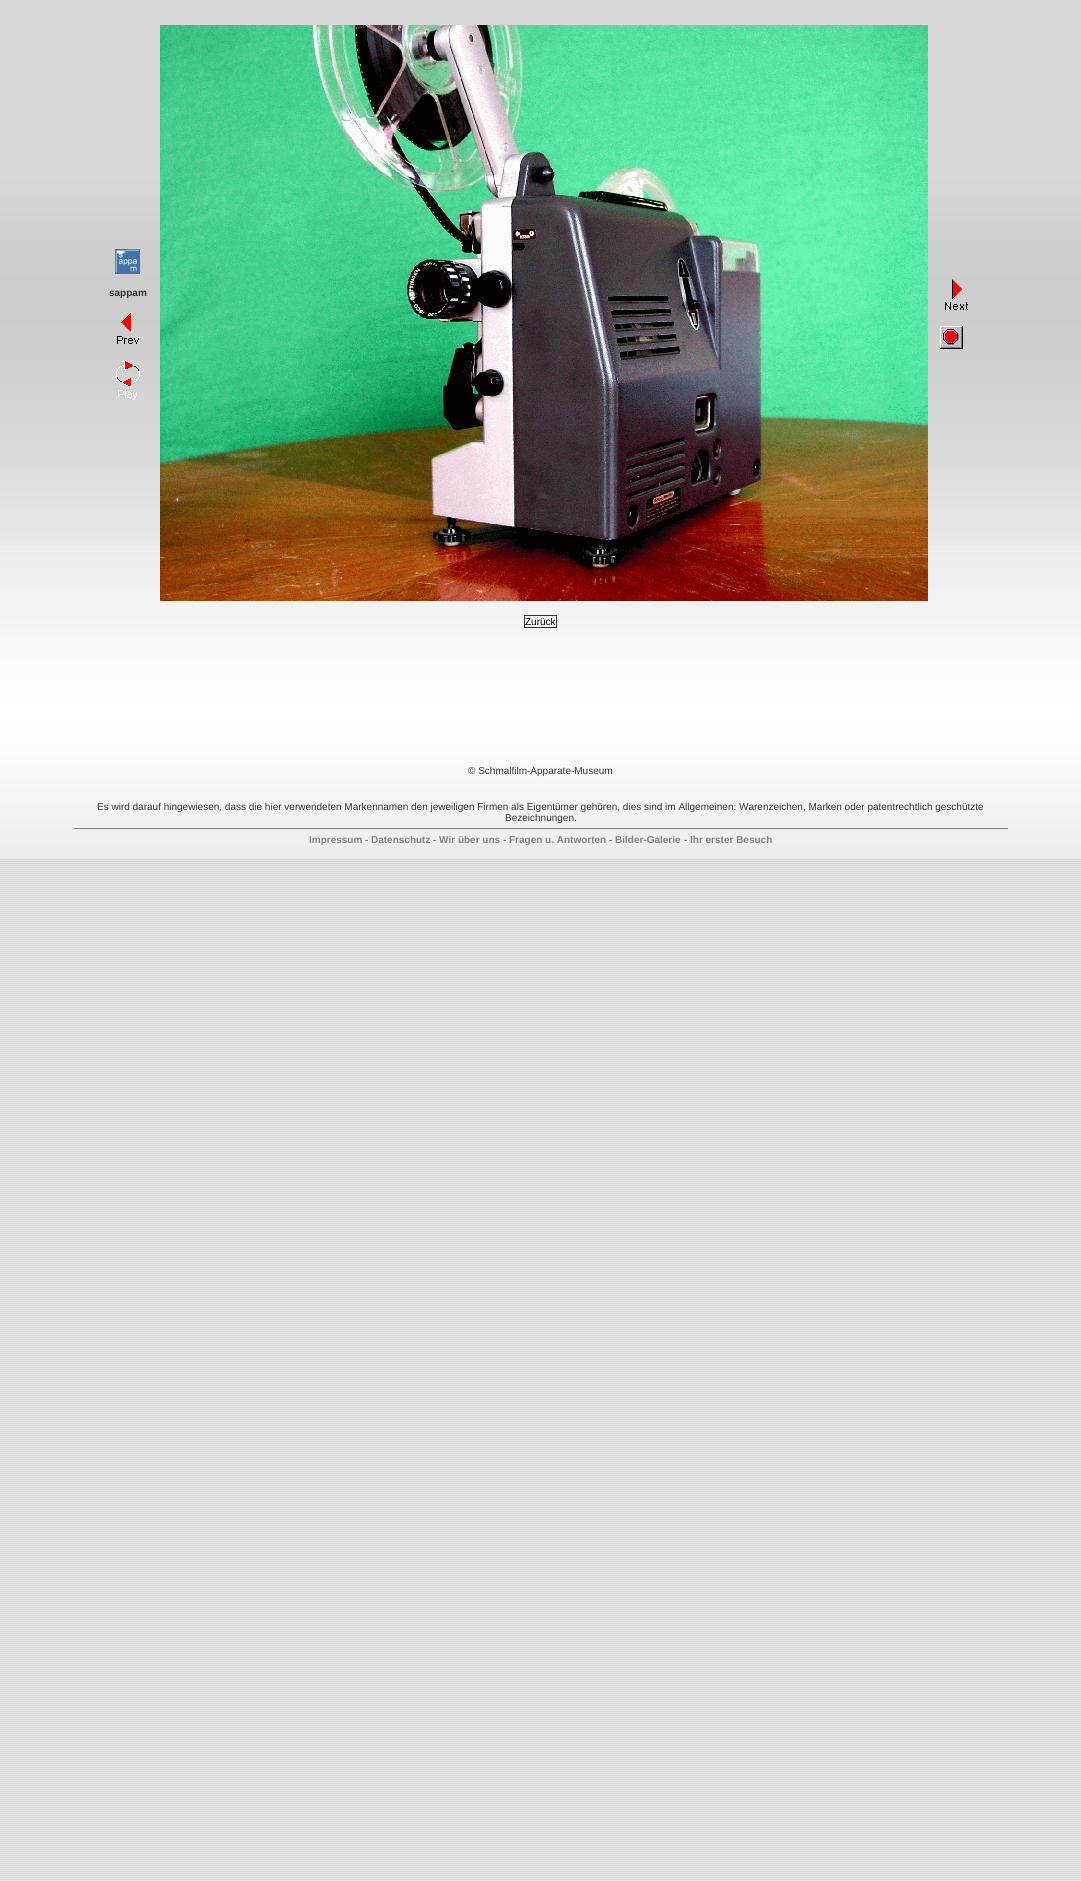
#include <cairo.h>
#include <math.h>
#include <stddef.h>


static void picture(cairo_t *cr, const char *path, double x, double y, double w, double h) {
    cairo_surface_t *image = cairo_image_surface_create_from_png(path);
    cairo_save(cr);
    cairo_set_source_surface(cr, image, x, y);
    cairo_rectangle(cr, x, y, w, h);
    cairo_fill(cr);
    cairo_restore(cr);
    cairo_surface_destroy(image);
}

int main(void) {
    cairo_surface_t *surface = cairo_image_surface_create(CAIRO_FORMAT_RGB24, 1081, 1881);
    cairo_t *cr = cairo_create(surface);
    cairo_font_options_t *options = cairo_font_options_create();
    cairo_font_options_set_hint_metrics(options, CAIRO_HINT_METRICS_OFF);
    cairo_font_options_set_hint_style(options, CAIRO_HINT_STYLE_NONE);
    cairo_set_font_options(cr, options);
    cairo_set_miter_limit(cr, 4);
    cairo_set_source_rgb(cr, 1, 1, 1);
    cairo_paint(cr);
    picture(cr, "img1.png", 0, 858, 1081, 1023);
    picture(cr, "img2.png", 0, 0, 1081, 858);
    picture(cr, "img3.png", 115, 249, 25, 25);
    cairo_select_font_face(cr, "Liberation Sans", CAIRO_FONT_SLANT_NORMAL, CAIRO_FONT_WEIGHT_BOLD);
    cairo_set_font_size(cr, 10);
    cairo_set_source_rgb(cr, 0.2, 0.2, 0.2);
    cairo_move_to(cr, 109, 296);
    cairo_show_text(cr, "sappam");
    picture(cr, "img4.png", 117, 312, 22, 32);
    picture(cr, "img5.png", 116, 361, 24, 39);
    picture(cr, "img6.png", 160, 25, 768, 576);
    picture(cr, "img7.png", 945, 279, 23, 31);
    picture(cr, "img8.png", 940, 326, 23, 23);
    cairo_set_source_rgb(cr, 1, 1, 1);
    cairo_rectangle(cr, 524.5, 615.5, 32, 12);
    cairo_fill_preserve(cr);
    cairo_set_source_rgb(cr, 0.2, 0.2, 0.2);
    cairo_set_line_width(cr, 1);
    cairo_stroke(cr);
    cairo_select_font_face(cr, "Liberation Sans", CAIRO_FONT_SLANT_NORMAL, CAIRO_FONT_WEIGHT_NORMAL);
    cairo_set_source_rgb(cr, 0, 0, 0);
    cairo_move_to(cr, 525, 625);
    cairo_show_text(cr, "Zurück");
    cairo_set_source_rgb(cr, 0.2, 0.2, 0.2);
    cairo_move_to(cr, 468, 774);
    cairo_show_text(cr, "© Schmalfilm-Apparate-Museum");
    cairo_move_to(cr, 97, 810);
    cairo_show_text(cr, "Es wird darauf hingewiesen, dass die hier verwendeten Markennamen den jeweiligen Firmen als Eigentümer gehören, dies sind im Allgemeinen: Warenzeichen, Marken oder patentrechtlich geschützte");
    cairo_move_to(cr, 505, 821);
    cairo_show_text(cr, "Bezeichnungen.");
    cairo_set_source_rgb(cr, 0.502, 0.502, 0.502);
    cairo_rectangle(cr, 74, 828, 934, 1);
    cairo_fill(cr);
    cairo_select_font_face(cr, "Liberation Sans", CAIRO_FONT_SLANT_NORMAL, CAIRO_FONT_WEIGHT_BOLD);
    cairo_set_source_rgb(cr, 0.51, 0.51, 0.51);
    cairo_move_to(cr, 309, 843);
    cairo_show_text(cr, "Impressum");
    cairo_select_font_face(cr, "Liberation Sans", CAIRO_FONT_SLANT_NORMAL, CAIRO_FONT_WEIGHT_NORMAL);
    cairo_set_source_rgb(cr, 0.2, 0.2, 0.2);
    cairo_move_to(cr, 365, 843);
    cairo_show_text(cr, "-");
    cairo_select_font_face(cr, "Liberation Sans", CAIRO_FONT_SLANT_NORMAL, CAIRO_FONT_WEIGHT_BOLD);
    cairo_set_source_rgb(cr, 0.51, 0.51, 0.51);
    cairo_move_to(cr, 371, 843);
    cairo_show_text(cr, "Datenschutz");
    cairo_select_font_face(cr, "Liberation Sans", CAIRO_FONT_SLANT_NORMAL, CAIRO_FONT_WEIGHT_NORMAL);
    cairo_set_source_rgb(cr, 0.2, 0.2, 0.2);
    cairo_move_to(cr, 433, 843);
    cairo_show_text(cr, "-");
    cairo_select_font_face(cr, "Liberation Sans", CAIRO_FONT_SLANT_NORMAL, CAIRO_FONT_WEIGHT_BOLD);
    cairo_set_source_rgb(cr, 0.51, 0.51, 0.51);
    cairo_move_to(cr, 439, 843);
    cairo_show_text(cr, "Wir über uns");
    cairo_select_font_face(cr, "Liberation Sans", CAIRO_FONT_SLANT_NORMAL, CAIRO_FONT_WEIGHT_NORMAL);
    cairo_set_source_rgb(cr, 0.2, 0.2, 0.2);
    cairo_move_to(cr, 503, 843);
    cairo_show_text(cr, "-");
    cairo_select_font_face(cr, "Liberation Sans", CAIRO_FONT_SLANT_NORMAL, CAIRO_FONT_WEIGHT_BOLD);
    cairo_set_source_rgb(cr, 0.51, 0.51, 0.51);
    cairo_move_to(cr, 509, 843);
    cairo_show_text(cr, "Fragen u. Antworten");
    cairo_select_font_face(cr, "Liberation Sans", CAIRO_FONT_SLANT_NORMAL, CAIRO_FONT_WEIGHT_NORMAL);
    cairo_set_source_rgb(cr, 0.2, 0.2, 0.2);
    cairo_move_to(cr, 609, 843);
    cairo_show_text(cr, "-");
    cairo_select_font_face(cr, "Liberation Sans", CAIRO_FONT_SLANT_NORMAL, CAIRO_FONT_WEIGHT_BOLD);
    cairo_set_source_rgb(cr, 0.51, 0.51, 0.51);
    cairo_move_to(cr, 615, 843);
    cairo_show_text(cr, "Bilder-Galerie");
    cairo_select_font_face(cr, "Liberation Sans", CAIRO_FONT_SLANT_NORMAL, CAIRO_FONT_WEIGHT_NORMAL);
    cairo_set_source_rgb(cr, 0.2, 0.2, 0.2);
    cairo_move_to(cr, 684, 843);
    cairo_show_text(cr, "-");
    cairo_select_font_face(cr, "Liberation Sans", CAIRO_FONT_SLANT_NORMAL, CAIRO_FONT_WEIGHT_BOLD);
    cairo_set_source_rgb(cr, 0.51, 0.51, 0.51);
    cairo_move_to(cr, 690, 843);
    cairo_show_text(cr, "Ihr erster Besuch");
    cairo_surface_write_to_png(surface, "page.png");
    cairo_font_options_destroy(options);
    cairo_destroy(cr);
    cairo_surface_destroy(surface);
    return 0;
}
